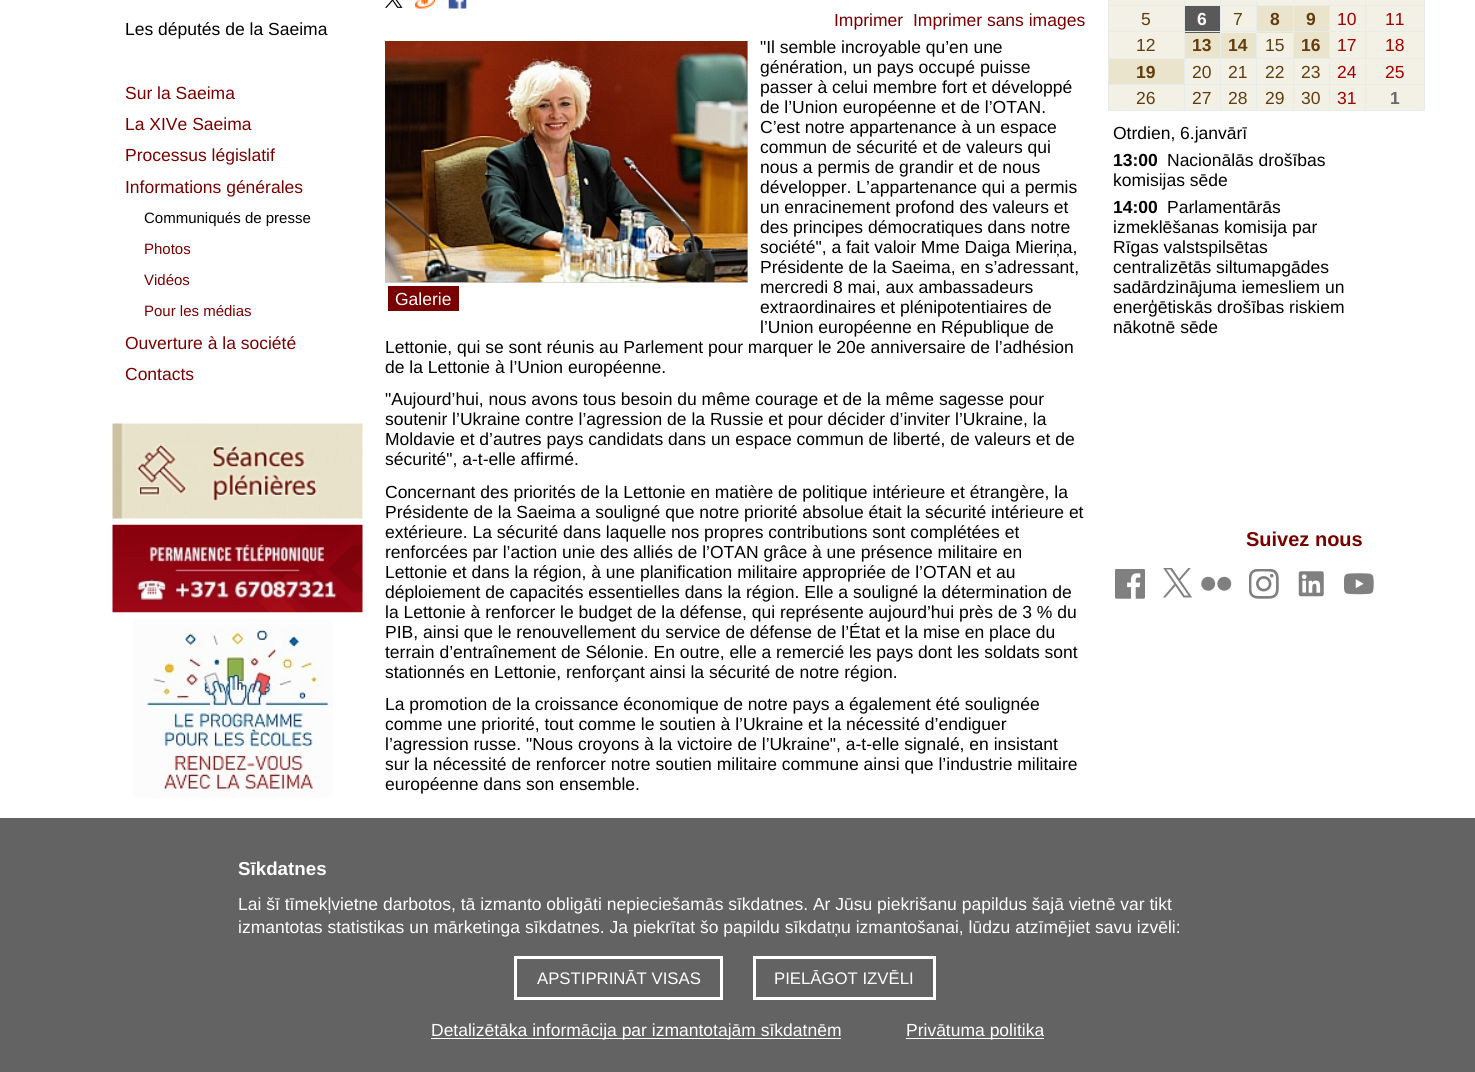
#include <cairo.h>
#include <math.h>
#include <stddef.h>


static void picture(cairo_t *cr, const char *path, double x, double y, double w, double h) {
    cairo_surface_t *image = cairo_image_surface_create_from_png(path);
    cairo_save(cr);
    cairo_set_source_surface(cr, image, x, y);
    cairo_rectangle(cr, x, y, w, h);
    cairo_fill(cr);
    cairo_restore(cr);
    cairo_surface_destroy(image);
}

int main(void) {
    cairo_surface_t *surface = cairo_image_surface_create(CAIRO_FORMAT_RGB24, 1475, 1072);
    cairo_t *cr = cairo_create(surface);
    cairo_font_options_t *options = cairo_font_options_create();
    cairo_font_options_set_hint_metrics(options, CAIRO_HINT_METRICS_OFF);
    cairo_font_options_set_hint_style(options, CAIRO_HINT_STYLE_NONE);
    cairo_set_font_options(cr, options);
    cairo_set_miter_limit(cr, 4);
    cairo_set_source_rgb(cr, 1, 1, 1);
    cairo_paint(cr);
    cairo_select_font_face(cr, "Liberation Sans", CAIRO_FONT_SLANT_NORMAL, CAIRO_FONT_WEIGHT_NORMAL);
    cairo_set_font_size(cr, 17.5);
    cairo_set_source_rgb(cr, 0, 0, 0);
    cairo_move_to(cr, 125, 35);
    cairo_show_text(cr, "Les députés de la Saeima");
    cairo_set_source_rgb(cr, 0.475, 0, 0);
    cairo_move_to(cr, 125, 99);
    cairo_show_text(cr, "Sur la Saeima");
    cairo_move_to(cr, 125, 130);
    cairo_show_text(cr, "La XIVe Saeima");
    cairo_move_to(cr, 125, 161);
    cairo_show_text(cr, "Processus législatif");
    cairo_move_to(cr, 125, 193);
    cairo_show_text(cr, "Informations générales");
    cairo_set_font_size(cr, 15);
    cairo_set_source_rgb(cr, 0, 0, 0);
    cairo_move_to(cr, 144, 223);
    cairo_show_text(cr, "Communiqués de presse");
    cairo_set_source_rgb(cr, 0.475, 0, 0);
    cairo_move_to(cr, 144, 254);
    cairo_show_text(cr, "Photos");
    cairo_move_to(cr, 144, 285);
    cairo_show_text(cr, "Vidéos");
    cairo_move_to(cr, 144, 316);
    cairo_show_text(cr, "Pour les médias");
    cairo_set_font_size(cr, 17.5);
    cairo_move_to(cr, 125, 349);
    cairo_show_text(cr, "Ouverture à la société");
    cairo_move_to(cr, 125, 380);
    cairo_show_text(cr, "Contacts");
    picture(cr, "img1.png", 112, 423, 251, 96);
    picture(cr, "img2.png", 112, 524, 251, 89);
    picture(cr, "img3.png", 133, 619, 200, 179);
    picture(cr, "img4.png", 385, 0, 18, 8);
    picture(cr, "img5.png", 415, 0, 20, 9);
    picture(cr, "img6.png", 448, 0, 19, 9);
    cairo_move_to(cr, 834, 26);
    cairo_show_text(cr, "Imprimer");
    cairo_move_to(cr, 913, 26);
    cairo_show_text(cr, "Imprimer sans images");
    cairo_set_source_rgb(cr, 0, 0, 0);
    cairo_move_to(cr, 760, 53);
    cairo_show_text(cr, "ʺIl semble incroyable qu’en une");
    cairo_move_to(cr, 760, 73);
    cairo_show_text(cr, "génération, un pays occupé puisse");
    cairo_move_to(cr, 760, 93);
    cairo_show_text(cr, "passer à celui membre fort et développé");
    cairo_move_to(cr, 760, 113);
    cairo_show_text(cr, "de l’Union européenne et de l’OTAN.");
    cairo_move_to(cr, 760, 133);
    cairo_show_text(cr, "C’est notre appartenance à un espace");
    cairo_move_to(cr, 760, 153);
    cairo_show_text(cr, "commun de sécurité et de valeurs qui");
    cairo_move_to(cr, 760, 173);
    cairo_show_text(cr, "nous a permis de grandir et de nous");
    cairo_move_to(cr, 760, 193);
    cairo_show_text(cr, "développer. L’appartenance qui a permis");
    cairo_move_to(cr, 760, 213);
    cairo_show_text(cr, "un enracinement profond des valeurs et");
    cairo_move_to(cr, 760, 233);
    cairo_show_text(cr, "des principes démocratiques dans notre");
    cairo_move_to(cr, 760, 253);
    cairo_show_text(cr, "sociétéʺ, a fait valoir Mme Daiga Mieriņa,");
    cairo_move_to(cr, 760, 273);
    cairo_show_text(cr, "Présidente de la Saeima, en s’adressant,");
    cairo_move_to(cr, 760, 293);
    cairo_show_text(cr, "mercredi 8 mai, aux ambassadeurs");
    cairo_move_to(cr, 760, 313);
    cairo_show_text(cr, "extraordinaires et plénipotentiaires de");
    cairo_move_to(cr, 760, 333);
    cairo_show_text(cr, "l’Union européenne en République de");
    cairo_move_to(cr, 385, 353);
    cairo_show_text(cr, "Lettonie, qui se sont réunis au Parlement pour marquer le 20e anniversaire de l’adhésion");
    cairo_move_to(cr, 385, 373);
    cairo_show_text(cr, "de la Lettonie à l’Union européenne.");
    cairo_set_source_rgb(cr, 0.827, 0.827, 0.827);
    cairo_rectangle(cr, 385, 41, 363, 242);
    cairo_fill(cr);
    picture(cr, "img7.png", 385, 41, 363, 242);
    cairo_set_source_rgb(cr, 0.475, 0, 0);
    cairo_rectangle(cr, 388, 286, 71, 25);
    cairo_fill(cr);
    cairo_set_source_rgb(cr, 1, 1, 1);
    cairo_move_to(cr, 395, 305);
    cairo_show_text(cr, "Galerie");
    cairo_set_source_rgb(cr, 0, 0, 0);
    cairo_move_to(cr, 385, 405);
    cairo_show_text(cr, "ʺAujourd’hui, nous avons tous besoin du même courage et de la même sagesse pour");
    cairo_move_to(cr, 385, 425);
    cairo_show_text(cr, "soutenir l’Ukraine contre l’agression de la Russie et pour décider d’inviter l’Ukraine, la");
    cairo_move_to(cr, 385, 445);
    cairo_show_text(cr, "Moldavie et d’autres pays candidats dans un espace commun de liberté, de valeurs et de");
    cairo_move_to(cr, 385, 465);
    cairo_show_text(cr, "sécuritéʺ, a-t-elle affirmé.");
    cairo_move_to(cr, 385, 498);
    cairo_show_text(cr, "Concernant des priorités de la Lettonie en matière de politique intérieure et étrangère, la");
    cairo_move_to(cr, 385, 518);
    cairo_show_text(cr, "Présidente de la Saeima a souligné que notre priorité absolue était la sécurité intérieure et");
    cairo_move_to(cr, 385, 538);
    cairo_show_text(cr, "extérieure. La sécurité dans laquelle nos propres contributions sont complétées et");
    cairo_move_to(cr, 385, 558);
    cairo_show_text(cr, "renforcées par l’action unie des alliés de l’OTAN grâce à une présence militaire en");
    cairo_move_to(cr, 385, 578);
    cairo_show_text(cr, "Lettonie et dans la région, à une planification militaire appropriée de l’OTAN et au");
    cairo_move_to(cr, 385, 598);
    cairo_show_text(cr, "déploiement de capacités essentielles dans la région. Elle a souligné la détermination de");
    cairo_move_to(cr, 385, 618);
    cairo_show_text(cr, "la Lettonie à renforcer le budget de la défense, qui représente aujourd’hui près de 3 % du");
    cairo_move_to(cr, 385, 638);
    cairo_show_text(cr, "PIB, ainsi que le renouvellement du service de défense de l’État et la mise en place du");
    cairo_move_to(cr, 385, 658);
    cairo_show_text(cr, "terrain d’entraînement de Sélonie. En outre, elle a remercié les pays dont les soldats sont");
    cairo_move_to(cr, 385, 678);
    cairo_show_text(cr, "stationnés en Lettonie, renforçant ainsi la sécurité de notre région.");
    cairo_move_to(cr, 385, 710);
    cairo_show_text(cr, "La promotion de la croissance économique de notre pays a également été soulignée");
    cairo_move_to(cr, 385, 730);
    cairo_show_text(cr, "comme une priorité, tout comme le soutien à l’Ukraine et la nécessité d’endiguer");
    cairo_move_to(cr, 385, 750);
    cairo_show_text(cr, "l’agression russe. ʺNous croyons à la victoire de l’Ukraineʺ, a-t-elle signalé, en insistant");
    cairo_move_to(cr, 385, 770);
    cairo_show_text(cr, "sur la nécessité de renforcer notre soutien militaire commune ainsi que l’industrie militaire");
    cairo_move_to(cr, 385, 790);
    cairo_show_text(cr, "européenne dans son ensemble.");
    cairo_set_source_rgb(cr, 0.953, 0.945, 0.898);
    cairo_rectangle(cr, 1109, 0, 315, 5);
    cairo_fill(cr);
    cairo_set_source_rgb(cr, 0.902, 0.918, 0.918);
    cairo_rectangle(cr, 1365, 5, 60, 1);
    cairo_fill(cr);
    cairo_set_source_rgb(cr, 0.953, 0.945, 0.898);
    cairo_rectangle(cr, 1330, 6, 35, 52);
    cairo_fill(cr);
    cairo_rectangle(cr, 1366, 6, 58, 52);
    cairo_fill(cr);
    cairo_set_source_rgb(cr, 0.902, 0.918, 0.918);
    cairo_rectangle(cr, 1365, 31, 60, 1);
    cairo_fill(cr);
    cairo_rectangle(cr, 1365, 58, 60, 1);
    cairo_fill(cr);
    cairo_rectangle(cr, 1365, 84, 60, 1);
    cairo_fill(cr);
    cairo_rectangle(cr, 1424, 84, 1, 27);
    cairo_fill(cr);
    cairo_rectangle(cr, 1365, 110, 60, 1);
    cairo_fill(cr);
    cairo_rectangle(cr, 1365, 84, 1, 27);
    cairo_fill(cr);
    cairo_rectangle(cr, 1329, 84, 37, 1);
    cairo_fill(cr);
    cairo_rectangle(cr, 1365, 58, 1, 27);
    cairo_fill(cr);
    cairo_rectangle(cr, 1329, 58, 37, 1);
    cairo_fill(cr);
    cairo_rectangle(cr, 1365, 31, 1, 28);
    cairo_fill(cr);
    cairo_rectangle(cr, 1329, 31, 37, 1);
    cairo_fill(cr);
    cairo_rectangle(cr, 1365, 5, 1, 28);
    cairo_fill(cr);
    cairo_rectangle(cr, 1329, 5, 37, 1);
    cairo_fill(cr);
    cairo_set_source_rgb(cr, 0.918, 0.894, 0.8);
    cairo_rectangle(cr, 1294, 6, 35, 52);
    cairo_fill(cr);
    cairo_set_source_rgb(cr, 0.902, 0.918, 0.918);
    cairo_rectangle(cr, 1329, 110, 37, 1);
    cairo_fill(cr);
    cairo_rectangle(cr, 1329, 84, 1, 27);
    cairo_fill(cr);
    cairo_rectangle(cr, 1293, 84, 37, 1);
    cairo_fill(cr);
    cairo_rectangle(cr, 1329, 58, 1, 27);
    cairo_fill(cr);
    cairo_rectangle(cr, 1293, 58, 37, 1);
    cairo_fill(cr);
    cairo_rectangle(cr, 1329, 31, 1, 28);
    cairo_fill(cr);
    cairo_rectangle(cr, 1293, 31, 37, 1);
    cairo_fill(cr);
    cairo_rectangle(cr, 1329, 5, 1, 28);
    cairo_fill(cr);
    cairo_rectangle(cr, 1293, 5, 37, 1);
    cairo_fill(cr);
    cairo_set_source_rgb(cr, 0.918, 0.894, 0.8);
    cairo_rectangle(cr, 1257, 6, 36, 27);
    cairo_fill(cr);
    cairo_set_source_rgb(cr, 0.902, 0.918, 0.918);
    cairo_rectangle(cr, 1293, 110, 37, 1);
    cairo_fill(cr);
    cairo_rectangle(cr, 1293, 84, 1, 27);
    cairo_fill(cr);
    cairo_rectangle(cr, 1256, 84, 38, 1);
    cairo_fill(cr);
    cairo_rectangle(cr, 1293, 58, 1, 27);
    cairo_fill(cr);
    cairo_rectangle(cr, 1256, 58, 38, 1);
    cairo_fill(cr);
    cairo_rectangle(cr, 1293, 31, 1, 28);
    cairo_fill(cr);
    cairo_rectangle(cr, 1256, 31, 38, 1);
    cairo_fill(cr);
    cairo_rectangle(cr, 1293, 5, 1, 28);
    cairo_fill(cr);
    cairo_rectangle(cr, 1256, 5, 38, 1);
    cairo_fill(cr);
    cairo_set_source_rgb(cr, 0.953, 0.945, 0.898);
    cairo_rectangle(cr, 1221, 6, 35, 27);
    cairo_fill(cr);
    cairo_set_source_rgb(cr, 0.902, 0.918, 0.918);
    cairo_rectangle(cr, 1256, 110, 38, 1);
    cairo_fill(cr);
    cairo_rectangle(cr, 1256, 84, 1, 27);
    cairo_fill(cr);
    cairo_rectangle(cr, 1220, 84, 38, 1);
    cairo_fill(cr);
    cairo_rectangle(cr, 1256, 58, 1, 27);
    cairo_fill(cr);
    cairo_rectangle(cr, 1220, 58, 38, 1);
    cairo_fill(cr);
    cairo_rectangle(cr, 1256, 31, 1, 28);
    cairo_fill(cr);
    cairo_rectangle(cr, 1220, 31, 38, 1);
    cairo_fill(cr);
    cairo_rectangle(cr, 1256, 5, 1, 28);
    cairo_fill(cr);
    cairo_rectangle(cr, 1220, 5, 38, 1);
    cairo_fill(cr);
    cairo_set_source_rgb(cr, 0.349, 0.349, 0.349);
    cairo_rectangle(cr, 1185, 6, 35, 27);
    cairo_fill(cr);
    cairo_set_source_rgb(cr, 0.902, 0.918, 0.918);
    cairo_rectangle(cr, 1220, 110, 38, 1);
    cairo_fill(cr);
    cairo_rectangle(cr, 1220, 84, 1, 27);
    cairo_fill(cr);
    cairo_rectangle(cr, 1184, 84, 37, 1);
    cairo_fill(cr);
    cairo_rectangle(cr, 1220, 58, 1, 27);
    cairo_fill(cr);
    cairo_rectangle(cr, 1184, 58, 37, 1);
    cairo_fill(cr);
    cairo_rectangle(cr, 1220, 31, 1, 28);
    cairo_fill(cr);
    cairo_rectangle(cr, 1184, 31, 37, 1);
    cairo_fill(cr);
    cairo_rectangle(cr, 1220, 5, 1, 28);
    cairo_fill(cr);
    cairo_rectangle(cr, 1184, 5, 37, 1);
    cairo_fill(cr);
    cairo_set_source_rgb(cr, 0.953, 0.945, 0.898);
    cairo_rectangle(cr, 1109, 6, 75, 52);
    cairo_fill(cr);
    cairo_set_source_rgb(cr, 0.902, 0.918, 0.918);
    cairo_rectangle(cr, 1184, 110, 37, 1);
    cairo_fill(cr);
    cairo_rectangle(cr, 1184, 84, 1, 27);
    cairo_fill(cr);
    cairo_rectangle(cr, 1108, 84, 77, 1);
    cairo_fill(cr);
    cairo_rectangle(cr, 1184, 58, 1, 27);
    cairo_fill(cr);
    cairo_rectangle(cr, 1108, 58, 77, 1);
    cairo_fill(cr);
    cairo_rectangle(cr, 1184, 31, 1, 28);
    cairo_fill(cr);
    cairo_rectangle(cr, 1108, 31, 77, 1);
    cairo_fill(cr);
    cairo_rectangle(cr, 1184, 5, 1, 28);
    cairo_fill(cr);
    cairo_rectangle(cr, 1108, 5, 77, 1);
    cairo_fill(cr);
    cairo_rectangle(cr, 1184, 0, 1, 6);
    cairo_fill(cr);
    cairo_rectangle(cr, 1220, 0, 1, 6);
    cairo_fill(cr);
    cairo_rectangle(cr, 1256, 0, 1, 6);
    cairo_fill(cr);
    cairo_rectangle(cr, 1293, 0, 1, 6);
    cairo_fill(cr);
    cairo_rectangle(cr, 1329, 0, 1, 6);
    cairo_fill(cr);
    cairo_rectangle(cr, 1365, 0, 1, 6);
    cairo_fill(cr);
    cairo_rectangle(cr, 1108, 110, 77, 1);
    cairo_fill(cr);
    cairo_rectangle(cr, 1108, 84, 1, 27);
    cairo_fill(cr);
    cairo_rectangle(cr, 1108, 58, 1, 27);
    cairo_fill(cr);
    cairo_rectangle(cr, 1108, 31, 1, 28);
    cairo_fill(cr);
    cairo_rectangle(cr, 1108, 0, 1, 33);
    cairo_fill(cr);
    cairo_set_source_rgb(cr, 0.38, 0.235, 0.059);
    cairo_move_to(cr, 1141, 25);
    cairo_show_text(cr, "5");
    cairo_select_font_face(cr, "Liberation Sans", CAIRO_FONT_SLANT_NORMAL, CAIRO_FONT_WEIGHT_BOLD);
    cairo_set_source_rgb(cr, 1, 1, 1);
    cairo_move_to(cr, 1197, 25);
    cairo_show_text(cr, "6");
    cairo_select_font_face(cr, "Liberation Sans", CAIRO_FONT_SLANT_NORMAL, CAIRO_FONT_WEIGHT_NORMAL);
    cairo_set_source_rgb(cr, 0.38, 0.235, 0.059);
    cairo_move_to(cr, 1233, 25);
    cairo_show_text(cr, "7");
    cairo_select_font_face(cr, "Liberation Sans", CAIRO_FONT_SLANT_NORMAL, CAIRO_FONT_WEIGHT_BOLD);
    cairo_move_to(cr, 1270, 25);
    cairo_show_text(cr, "8");
    cairo_move_to(cr, 1306, 25);
    cairo_show_text(cr, "9");
    cairo_select_font_face(cr, "Liberation Sans", CAIRO_FONT_SLANT_NORMAL, CAIRO_FONT_WEIGHT_NORMAL);
    cairo_set_source_rgb(cr, 0.627, 0, 0);
    cairo_move_to(cr, 1337, 25);
    cairo_show_text(cr, "10");
    cairo_set_source_rgb(cr, 0.902, 0.918, 0.918);
    cairo_rectangle(cr, 1424, 58, 1, 27);
    cairo_fill(cr);
    cairo_rectangle(cr, 1424, 31, 1, 28);
    cairo_fill(cr);
    cairo_rectangle(cr, 1424, 0, 1, 33);
    cairo_fill(cr);
    cairo_set_source_rgb(cr, 0.627, 0, 0);
    cairo_move_to(cr, 1385, 25);
    cairo_show_text(cr, "11");
    cairo_set_source_rgb(cr, 0.38, 0.235, 0.059);
    cairo_move_to(cr, 1136, 51);
    cairo_show_text(cr, "12");
    cairo_set_source_rgb(cr, 0.918, 0.894, 0.8);
    cairo_rectangle(cr, 1185, 33, 35, 25);
    cairo_fill(cr);
    cairo_select_font_face(cr, "Liberation Sans", CAIRO_FONT_SLANT_NORMAL, CAIRO_FONT_WEIGHT_BOLD);
    cairo_set_source_rgb(cr, 0.38, 0.235, 0.059);
    cairo_move_to(cr, 1192, 51);
    cairo_show_text(cr, "13");
    cairo_set_source_rgb(cr, 0.918, 0.894, 0.8);
    cairo_rectangle(cr, 1221, 33, 35, 25);
    cairo_fill(cr);
    cairo_set_source_rgb(cr, 0.38, 0.235, 0.059);
    cairo_move_to(cr, 1228, 51);
    cairo_show_text(cr, "14");
    cairo_set_source_rgb(cr, 0.953, 0.945, 0.898);
    cairo_rectangle(cr, 1257, 33, 36, 25);
    cairo_fill(cr);
    cairo_select_font_face(cr, "Liberation Sans", CAIRO_FONT_SLANT_NORMAL, CAIRO_FONT_WEIGHT_NORMAL);
    cairo_set_source_rgb(cr, 0.38, 0.235, 0.059);
    cairo_move_to(cr, 1265, 51);
    cairo_show_text(cr, "15");
    cairo_select_font_face(cr, "Liberation Sans", CAIRO_FONT_SLANT_NORMAL, CAIRO_FONT_WEIGHT_BOLD);
    cairo_move_to(cr, 1301, 51);
    cairo_show_text(cr, "16");
    cairo_select_font_face(cr, "Liberation Sans", CAIRO_FONT_SLANT_NORMAL, CAIRO_FONT_WEIGHT_NORMAL);
    cairo_set_source_rgb(cr, 0.627, 0, 0);
    cairo_move_to(cr, 1337, 51);
    cairo_show_text(cr, "17");
    cairo_move_to(cr, 1385, 51);
    cairo_show_text(cr, "18");
    cairo_set_source_rgb(cr, 0.918, 0.894, 0.8);
    cairo_rectangle(cr, 1109, 59, 75, 25);
    cairo_fill(cr);
    cairo_select_font_face(cr, "Liberation Sans", CAIRO_FONT_SLANT_NORMAL, CAIRO_FONT_WEIGHT_BOLD);
    cairo_set_source_rgb(cr, 0.38, 0.235, 0.059);
    cairo_move_to(cr, 1136, 78);
    cairo_show_text(cr, "19");
    cairo_set_source_rgb(cr, 0.953, 0.945, 0.898);
    cairo_rectangle(cr, 1185, 59, 35, 25);
    cairo_fill(cr);
    cairo_select_font_face(cr, "Liberation Sans", CAIRO_FONT_SLANT_NORMAL, CAIRO_FONT_WEIGHT_NORMAL);
    cairo_set_source_rgb(cr, 0.38, 0.235, 0.059);
    cairo_move_to(cr, 1192, 78);
    cairo_show_text(cr, "20");
    cairo_set_source_rgb(cr, 0.953, 0.945, 0.898);
    cairo_rectangle(cr, 1221, 59, 35, 25);
    cairo_fill(cr);
    cairo_set_source_rgb(cr, 0.38, 0.235, 0.059);
    cairo_move_to(cr, 1228, 78);
    cairo_show_text(cr, "21");
    cairo_set_source_rgb(cr, 0.953, 0.945, 0.898);
    cairo_rectangle(cr, 1257, 59, 36, 25);
    cairo_fill(cr);
    cairo_set_source_rgb(cr, 0.38, 0.235, 0.059);
    cairo_move_to(cr, 1265, 78);
    cairo_show_text(cr, "22");
    cairo_set_source_rgb(cr, 0.953, 0.945, 0.898);
    cairo_rectangle(cr, 1294, 59, 35, 25);
    cairo_fill(cr);
    cairo_set_source_rgb(cr, 0.38, 0.235, 0.059);
    cairo_move_to(cr, 1301, 78);
    cairo_show_text(cr, "23");
    cairo_set_source_rgb(cr, 0.953, 0.945, 0.898);
    cairo_rectangle(cr, 1330, 59, 35, 25);
    cairo_fill(cr);
    cairo_set_source_rgb(cr, 0.627, 0, 0);
    cairo_move_to(cr, 1337, 78);
    cairo_show_text(cr, "24");
    cairo_set_source_rgb(cr, 0.953, 0.945, 0.898);
    cairo_rectangle(cr, 1366, 59, 58, 25);
    cairo_fill(cr);
    cairo_set_source_rgb(cr, 0.627, 0, 0);
    cairo_move_to(cr, 1385, 78);
    cairo_show_text(cr, "25");
    cairo_set_source_rgb(cr, 0.953, 0.945, 0.898);
    cairo_rectangle(cr, 1109, 85, 75, 25);
    cairo_fill(cr);
    cairo_set_source_rgb(cr, 0.38, 0.235, 0.059);
    cairo_move_to(cr, 1136, 104);
    cairo_show_text(cr, "26");
    cairo_set_source_rgb(cr, 0.953, 0.945, 0.898);
    cairo_rectangle(cr, 1185, 85, 35, 25);
    cairo_fill(cr);
    cairo_set_source_rgb(cr, 0.38, 0.235, 0.059);
    cairo_move_to(cr, 1192, 104);
    cairo_show_text(cr, "27");
    cairo_set_source_rgb(cr, 0.953, 0.945, 0.898);
    cairo_rectangle(cr, 1221, 85, 35, 25);
    cairo_fill(cr);
    cairo_set_source_rgb(cr, 0.38, 0.235, 0.059);
    cairo_move_to(cr, 1228, 104);
    cairo_show_text(cr, "28");
    cairo_set_source_rgb(cr, 0.953, 0.945, 0.898);
    cairo_rectangle(cr, 1257, 85, 36, 25);
    cairo_fill(cr);
    cairo_set_source_rgb(cr, 0.38, 0.235, 0.059);
    cairo_move_to(cr, 1265, 104);
    cairo_show_text(cr, "29");
    cairo_set_source_rgb(cr, 0.953, 0.945, 0.898);
    cairo_rectangle(cr, 1294, 85, 35, 25);
    cairo_fill(cr);
    cairo_set_source_rgb(cr, 0.38, 0.235, 0.059);
    cairo_move_to(cr, 1301, 104);
    cairo_show_text(cr, "30");
    cairo_set_source_rgb(cr, 0.953, 0.945, 0.898);
    cairo_rectangle(cr, 1330, 85, 35, 25);
    cairo_fill(cr);
    cairo_set_source_rgb(cr, 0.627, 0, 0);
    cairo_move_to(cr, 1337, 104);
    cairo_show_text(cr, "31");
    cairo_set_source_rgb(cr, 0.953, 0.945, 0.898);
    cairo_rectangle(cr, 1366, 85, 58, 25);
    cairo_fill(cr);
    cairo_select_font_face(cr, "Liberation Sans", CAIRO_FONT_SLANT_NORMAL, CAIRO_FONT_WEIGHT_BOLD);
    cairo_set_source_rgb(cr, 0.412, 0.412, 0.412);
    cairo_move_to(cr, 1390, 104);
    cairo_show_text(cr, "1");
    cairo_select_font_face(cr, "Liberation Sans", CAIRO_FONT_SLANT_NORMAL, CAIRO_FONT_WEIGHT_NORMAL);
    cairo_set_source_rgb(cr, 0, 0, 0);
    cairo_move_to(cr, 1113, 139);
    cairo_show_text(cr, "Otrdien, 6.janvārī");
    cairo_select_font_face(cr, "Liberation Sans", CAIRO_FONT_SLANT_NORMAL, CAIRO_FONT_WEIGHT_BOLD);
    cairo_move_to(cr, 1113, 166);
    cairo_show_text(cr, "13:00");
    cairo_select_font_face(cr, "Liberation Sans", CAIRO_FONT_SLANT_NORMAL, CAIRO_FONT_WEIGHT_NORMAL);
    cairo_move_to(cr, 1167, 166);
    cairo_show_text(cr, "Nacionālās drošības");
    cairo_move_to(cr, 1113, 186);
    cairo_show_text(cr, "komisijas sēde");
    cairo_select_font_face(cr, "Liberation Sans", CAIRO_FONT_SLANT_NORMAL, CAIRO_FONT_WEIGHT_BOLD);
    cairo_move_to(cr, 1113, 213);
    cairo_show_text(cr, "14:00");
    cairo_select_font_face(cr, "Liberation Sans", CAIRO_FONT_SLANT_NORMAL, CAIRO_FONT_WEIGHT_NORMAL);
    cairo_move_to(cr, 1167, 213);
    cairo_show_text(cr, "Parlamentārās");
    cairo_move_to(cr, 1113, 233);
    cairo_show_text(cr, "izmeklēšanas komisija par");
    cairo_move_to(cr, 1113, 253);
    cairo_show_text(cr, "Rīgas valstspilsētas");
    cairo_move_to(cr, 1113, 273);
    cairo_show_text(cr, "centralizētās siltumapgādes");
    cairo_move_to(cr, 1113, 293);
    cairo_show_text(cr, "sadārdzinājuma iemesliem un");
    cairo_move_to(cr, 1113, 313);
    cairo_show_text(cr, "enerģētiskās drošības riskiem");
    cairo_move_to(cr, 1113, 333);
    cairo_show_text(cr, "nākotnē sēde");
    cairo_select_font_face(cr, "Liberation Sans", CAIRO_FONT_SLANT_NORMAL, CAIRO_FONT_WEIGHT_BOLD);
    cairo_set_font_size(cr, 20);
    cairo_set_source_rgb(cr, 0.475, 0, 0);
    cairo_move_to(cr, 1246, 546);
    cairo_show_text(cr, "Suivez nous");
    picture(cr, "img8.png", 1115, 569, 30, 30);
    picture(cr, "img9.png", 1163, 568, 29, 30);
    picture(cr, "img10.png", 1201, 576, 31, 15);
    picture(cr, "img11.png", 1249, 569, 30, 30);
    picture(cr, "img12.png", 1298, 571, 26, 26);
    picture(cr, "img13.png", 1344, 573, 30, 22);
    cairo_set_source_rgba(cr, 0.235, 0.235, 0.235, 0.8);
    cairo_rectangle(cr, 0, 818, 1475, 254);
    cairo_fill(cr);
    cairo_set_font_size(cr, 18.75);
    cairo_set_source_rgb(cr, 1, 1, 1);
    cairo_move_to(cr, 238, 875);
    cairo_show_text(cr, "Sīkdatnes");
    cairo_select_font_face(cr, "Liberation Sans", CAIRO_FONT_SLANT_NORMAL, CAIRO_FONT_WEIGHT_NORMAL);
    cairo_set_font_size(cr, 17.5);
    cairo_move_to(cr, 238, 910);
    cairo_show_text(cr, "Lai šī tīmekļvietne darbotos, tā izmanto obligāti nepieciešamās sīkdatnes. Ar Jūsu piekrišanu papildus šajā vietnē var tikt");
    cairo_move_to(cr, 238, 933);
    cairo_show_text(cr, "izmantotas statistikas un mārketinga sīkdatnes. Ja piekrītat šo papildu sīkdatņu izmantošanai, lūdzu atzīmējiet savu izvēli:");
    cairo_rectangle(cr, 515.5, 957.5, 206, 41);
    cairo_set_line_width(cr, 3);
    cairo_stroke(cr);
    cairo_set_font_size(cr, 16.75);
    cairo_move_to(cr, 537, 984);
    cairo_show_text(cr, "APSTIPRINĀT VISAS");
    cairo_rectangle(cr, 754.5, 957.5, 180, 41);
    cairo_stroke(cr);
    cairo_move_to(cr, 774, 984);
    cairo_show_text(cr, "PIELĀGOT IZVĒLI");
    cairo_rectangle(cr, 431, 1038, 410, 1);
    cairo_fill(cr);
    cairo_set_font_size(cr, 17.5);
    cairo_move_to(cr, 431, 1036);
    cairo_show_text(cr, "Detalizētāka informācija par izmantotajām sīkdatnēm");
    cairo_rectangle(cr, 906, 1038, 138, 1);
    cairo_fill(cr);
    cairo_move_to(cr, 906, 1036);
    cairo_show_text(cr, "Privātuma politika");
    cairo_surface_write_to_png(surface, "page.png");
    cairo_font_options_destroy(options);
    cairo_destroy(cr);
    cairo_surface_destroy(surface);
    return 0;
}
